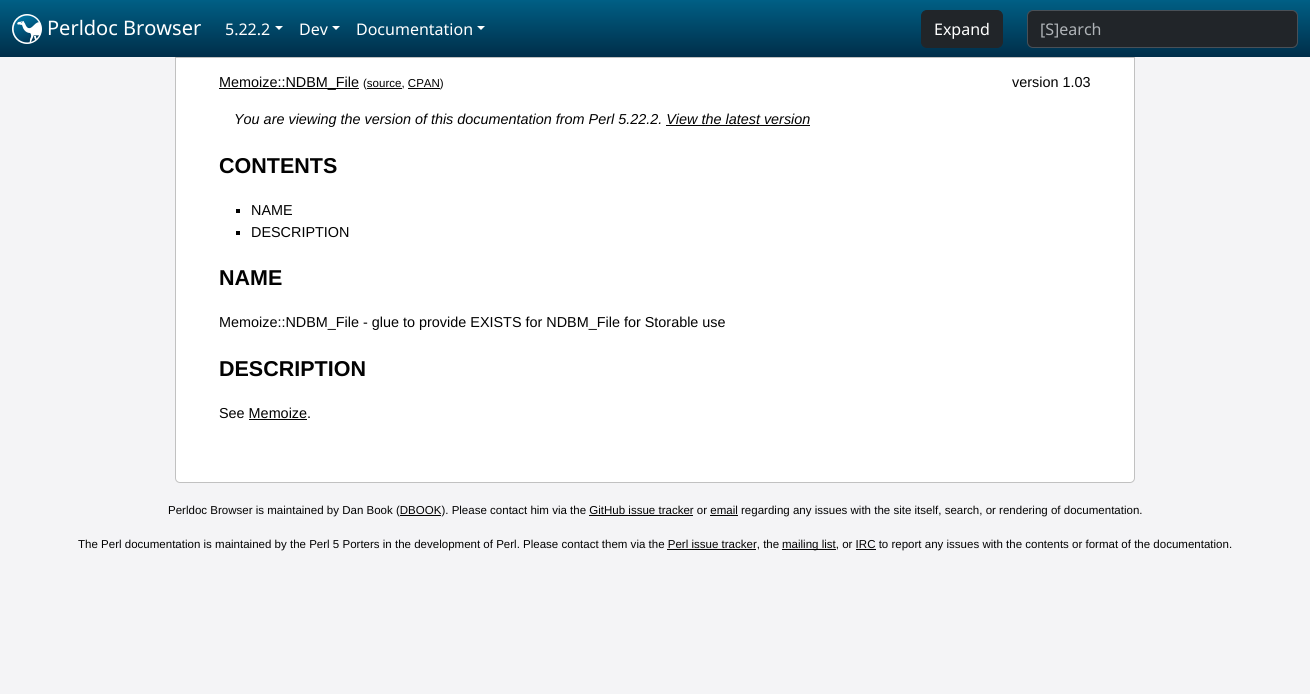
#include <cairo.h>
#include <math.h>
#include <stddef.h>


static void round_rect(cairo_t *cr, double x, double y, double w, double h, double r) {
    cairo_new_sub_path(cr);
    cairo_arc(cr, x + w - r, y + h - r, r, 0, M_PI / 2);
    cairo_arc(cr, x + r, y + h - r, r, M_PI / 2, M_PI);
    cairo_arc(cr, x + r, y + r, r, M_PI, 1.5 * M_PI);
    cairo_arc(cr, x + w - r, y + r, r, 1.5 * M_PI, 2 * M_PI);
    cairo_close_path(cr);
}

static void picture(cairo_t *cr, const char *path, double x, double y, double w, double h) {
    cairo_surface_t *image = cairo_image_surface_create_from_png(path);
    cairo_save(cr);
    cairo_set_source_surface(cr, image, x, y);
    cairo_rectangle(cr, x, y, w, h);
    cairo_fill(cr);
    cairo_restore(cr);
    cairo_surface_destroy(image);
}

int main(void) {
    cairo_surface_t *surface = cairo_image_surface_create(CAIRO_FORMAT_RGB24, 1310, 694);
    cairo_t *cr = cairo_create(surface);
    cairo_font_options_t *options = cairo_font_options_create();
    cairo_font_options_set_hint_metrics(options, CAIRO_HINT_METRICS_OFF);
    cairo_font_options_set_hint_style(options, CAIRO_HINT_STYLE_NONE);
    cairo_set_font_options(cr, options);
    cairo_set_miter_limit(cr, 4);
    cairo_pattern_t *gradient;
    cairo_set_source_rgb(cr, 0.957, 0.957, 0.961);
    cairo_paint(cr);
    gradient = cairo_pattern_create_linear(655, 0, 655, 57);
    cairo_pattern_add_color_stop_rgba(gradient, 0, 0, 0.373, 0.522, 1);
    cairo_pattern_add_color_stop_rgba(gradient, 1, 0, 0.18, 0.286, 1);
    cairo_set_source(cr, gradient);
    cairo_pattern_destroy(gradient);
    cairo_rectangle(cr, 0, 0, 1310, 57);
    cairo_fill(cr);
    picture(cr, "img1.png", 12, 14, 30, 30);
    cairo_select_font_face(cr, "Noto Sans", CAIRO_FONT_SLANT_NORMAL, CAIRO_FONT_WEIGHT_NORMAL);
    cairo_set_font_size(cr, 20);
    cairo_set_source_rgb(cr, 1, 1, 1);
    cairo_move_to(cr, 47, 35);
    cairo_show_text(cr, "Perldoc Browser");
    cairo_set_font_size(cr, 16);
    cairo_move_to(cr, 225, 35);
    cairo_show_text(cr, "5.22.2");
    cairo_new_path(cr);
    cairo_move_to(cr, 275, 26);
    cairo_line_to(cr, 283, 26);
    cairo_line_to(cr, 279, 30);
    cairo_close_path(cr);
    cairo_fill(cr);
    cairo_move_to(cr, 299, 35);
    cairo_show_text(cr, "Dev");
    cairo_new_path(cr);
    cairo_move_to(cr, 332, 26);
    cairo_line_to(cr, 340, 26);
    cairo_line_to(cr, 336, 30);
    cairo_close_path(cr);
    cairo_fill(cr);
    cairo_move_to(cr, 356, 35);
    cairo_show_text(cr, "Documentation");
    cairo_new_path(cr);
    cairo_move_to(cr, 477, 26);
    cairo_line_to(cr, 485, 26);
    cairo_line_to(cr, 481, 30);
    cairo_close_path(cr);
    cairo_fill(cr);
    cairo_set_source_rgb(cr, 0.129, 0.145, 0.161);
    round_rect(cr, 921.5, 10.5, 81, 37, 5.5);
    cairo_fill_preserve(cr);
    cairo_set_line_width(cr, 1);
    cairo_stroke(cr);
    cairo_set_source_rgb(cr, 1, 1, 1);
    cairo_move_to(cr, 934, 35);
    cairo_show_text(cr, "Expand");
    cairo_set_source_rgb(cr, 0.129, 0.145, 0.161);
    round_rect(cr, 1027.5, 10.5, 270, 37, 5.5);
    cairo_fill_preserve(cr);
    cairo_set_source_rgb(cr, 0.286, 0.314, 0.341);
    cairo_stroke(cr);
    cairo_set_source_rgb(cr, 0.686, 0.702, 0.718);
    cairo_move_to(cr, 1040, 35);
    cairo_show_text(cr, "[S]earch");
    cairo_set_source_rgb(cr, 1, 1, 1);
    cairo_new_path(cr);
    cairo_move_to(cr, 175.5, 57.5);
    cairo_line_to(cr, 1134.5, 57.5);
    cairo_line_to(cr, 1134.5, 478);
    cairo_curve_to(cr, 1134.5, 480.5, 1132.5, 482.5, 1130, 482.5);
    cairo_line_to(cr, 180, 482.5);
    cairo_curve_to(cr, 177.5, 482.5, 175.5, 480.5, 175.5, 478);
    cairo_close_path(cr);
    cairo_fill_preserve(cr);
    cairo_set_source_rgb(cr, 0.757, 0.757, 0.757);
    cairo_stroke(cr);
    cairo_set_source_rgb(cr, 0.008, 0.008, 0.008);
    cairo_rectangle(cr, 219, 88, 140, 1);
    cairo_fill(cr);
    cairo_select_font_face(cr, "Liberation Sans", CAIRO_FONT_SLANT_NORMAL, CAIRO_FONT_WEIGHT_NORMAL);
    cairo_set_font_size(cr, 14.4);
    cairo_move_to(cr, 219, 87);
    cairo_show_text(cr, "Memoize::NDBM_File");
    cairo_set_font_size(cr, 11.52);
    cairo_move_to(cr, 363, 87);
    cairo_show_text(cr, "(source, CPAN)");
    cairo_rectangle(cr, 367, 88, 35, 1);
    cairo_fill(cr);
    cairo_rectangle(cr, 408, 88, 32, 1);
    cairo_fill(cr);
    cairo_set_font_size(cr, 14.4);
    cairo_move_to(cr, 1012, 87);
    cairo_show_text(cr, "version 1.03");
    cairo_select_font_face(cr, "Liberation Sans", CAIRO_FONT_SLANT_ITALIC, CAIRO_FONT_WEIGHT_NORMAL);
    cairo_move_to(cr, 234, 124);
    cairo_show_text(cr, "You are viewing the version of this documentation from Perl 5.22.2. View the latest version");
    cairo_rectangle(cr, 666, 125, 144, 1);
    cairo_fill(cr);
    cairo_select_font_face(cr, "Liberation Sans", CAIRO_FONT_SLANT_NORMAL, CAIRO_FONT_WEIGHT_BOLD);
    cairo_set_font_size(cr, 21.5);
    cairo_move_to(cr, 219, 173);
    cairo_show_text(cr, "CONTENTS");
    cairo_rectangle(cr, 236, 209, 4, 4);
    cairo_fill(cr);
    cairo_select_font_face(cr, "Liberation Sans", CAIRO_FONT_SLANT_NORMAL, CAIRO_FONT_WEIGHT_NORMAL);
    cairo_set_font_size(cr, 14.4);
    cairo_move_to(cr, 251, 215);
    cairo_show_text(cr, "NAME");
    cairo_rectangle(cr, 236, 231, 4, 4);
    cairo_fill(cr);
    cairo_move_to(cr, 251, 237);
    cairo_show_text(cr, "DESCRIPTION");
    cairo_select_font_face(cr, "Liberation Sans", CAIRO_FONT_SLANT_NORMAL, CAIRO_FONT_WEIGHT_BOLD);
    cairo_set_font_size(cr, 21.5);
    cairo_move_to(cr, 219, 285);
    cairo_show_text(cr, "NAME");
    cairo_select_font_face(cr, "Liberation Sans", CAIRO_FONT_SLANT_NORMAL, CAIRO_FONT_WEIGHT_NORMAL);
    cairo_set_font_size(cr, 14.4);
    cairo_move_to(cr, 219, 327);
    cairo_show_text(cr, "Memoize::NDBM_File - glue to provide EXISTS for NDBM_File for Storable use");
    cairo_select_font_face(cr, "Liberation Sans", CAIRO_FONT_SLANT_NORMAL, CAIRO_FONT_WEIGHT_BOLD);
    cairo_set_font_size(cr, 21.5);
    cairo_move_to(cr, 219, 376);
    cairo_show_text(cr, "DESCRIPTION");
    cairo_select_font_face(cr, "Liberation Sans", CAIRO_FONT_SLANT_NORMAL, CAIRO_FONT_WEIGHT_NORMAL);
    cairo_set_font_size(cr, 14.4);
    cairo_move_to(cr, 219, 418);
    cairo_show_text(cr, "See Memoize.");
    cairo_rectangle(cr, 249, 419, 58, 1);
    cairo_fill(cr);
    cairo_set_font_size(cr, 11.52);
    cairo_move_to(cr, 168, 514);
    cairo_show_text(cr, "Perldoc Browser is maintained by Dan Book (DBOOK). Please contact him via the GitHub issue tracker or email regarding any issues with the site itself, search, or rendering of documentation.");
    cairo_rectangle(cr, 400, 515, 41, 1);
    cairo_fill(cr);
    cairo_rectangle(cr, 589, 515, 104, 1);
    cairo_fill(cr);
    cairo_rectangle(cr, 710, 515, 28, 1);
    cairo_fill(cr);
    cairo_move_to(cr, 78, 548);
    cairo_show_text(cr, "The Perl documentation is maintained by the Perl 5 Porters in the development of Perl. Please contact them via the Perl issue tracker, the");
    cairo_rectangle(cr, 782, 549, 54, 1);
    cairo_fill(cr);
    cairo_move_to(cr, 782, 548);
    cairo_show_text(cr, "mailing list, or IRC to report any issues with the contents or format of the documentation.");
    cairo_rectangle(cr, 667, 549, 89, 1);
    cairo_fill(cr);
    cairo_rectangle(cr, 856, 549, 20, 1);
    cairo_fill(cr);
    cairo_surface_write_to_png(surface, "page.png");
    cairo_font_options_destroy(options);
    cairo_destroy(cr);
    cairo_surface_destroy(surface);
    return 0;
}
